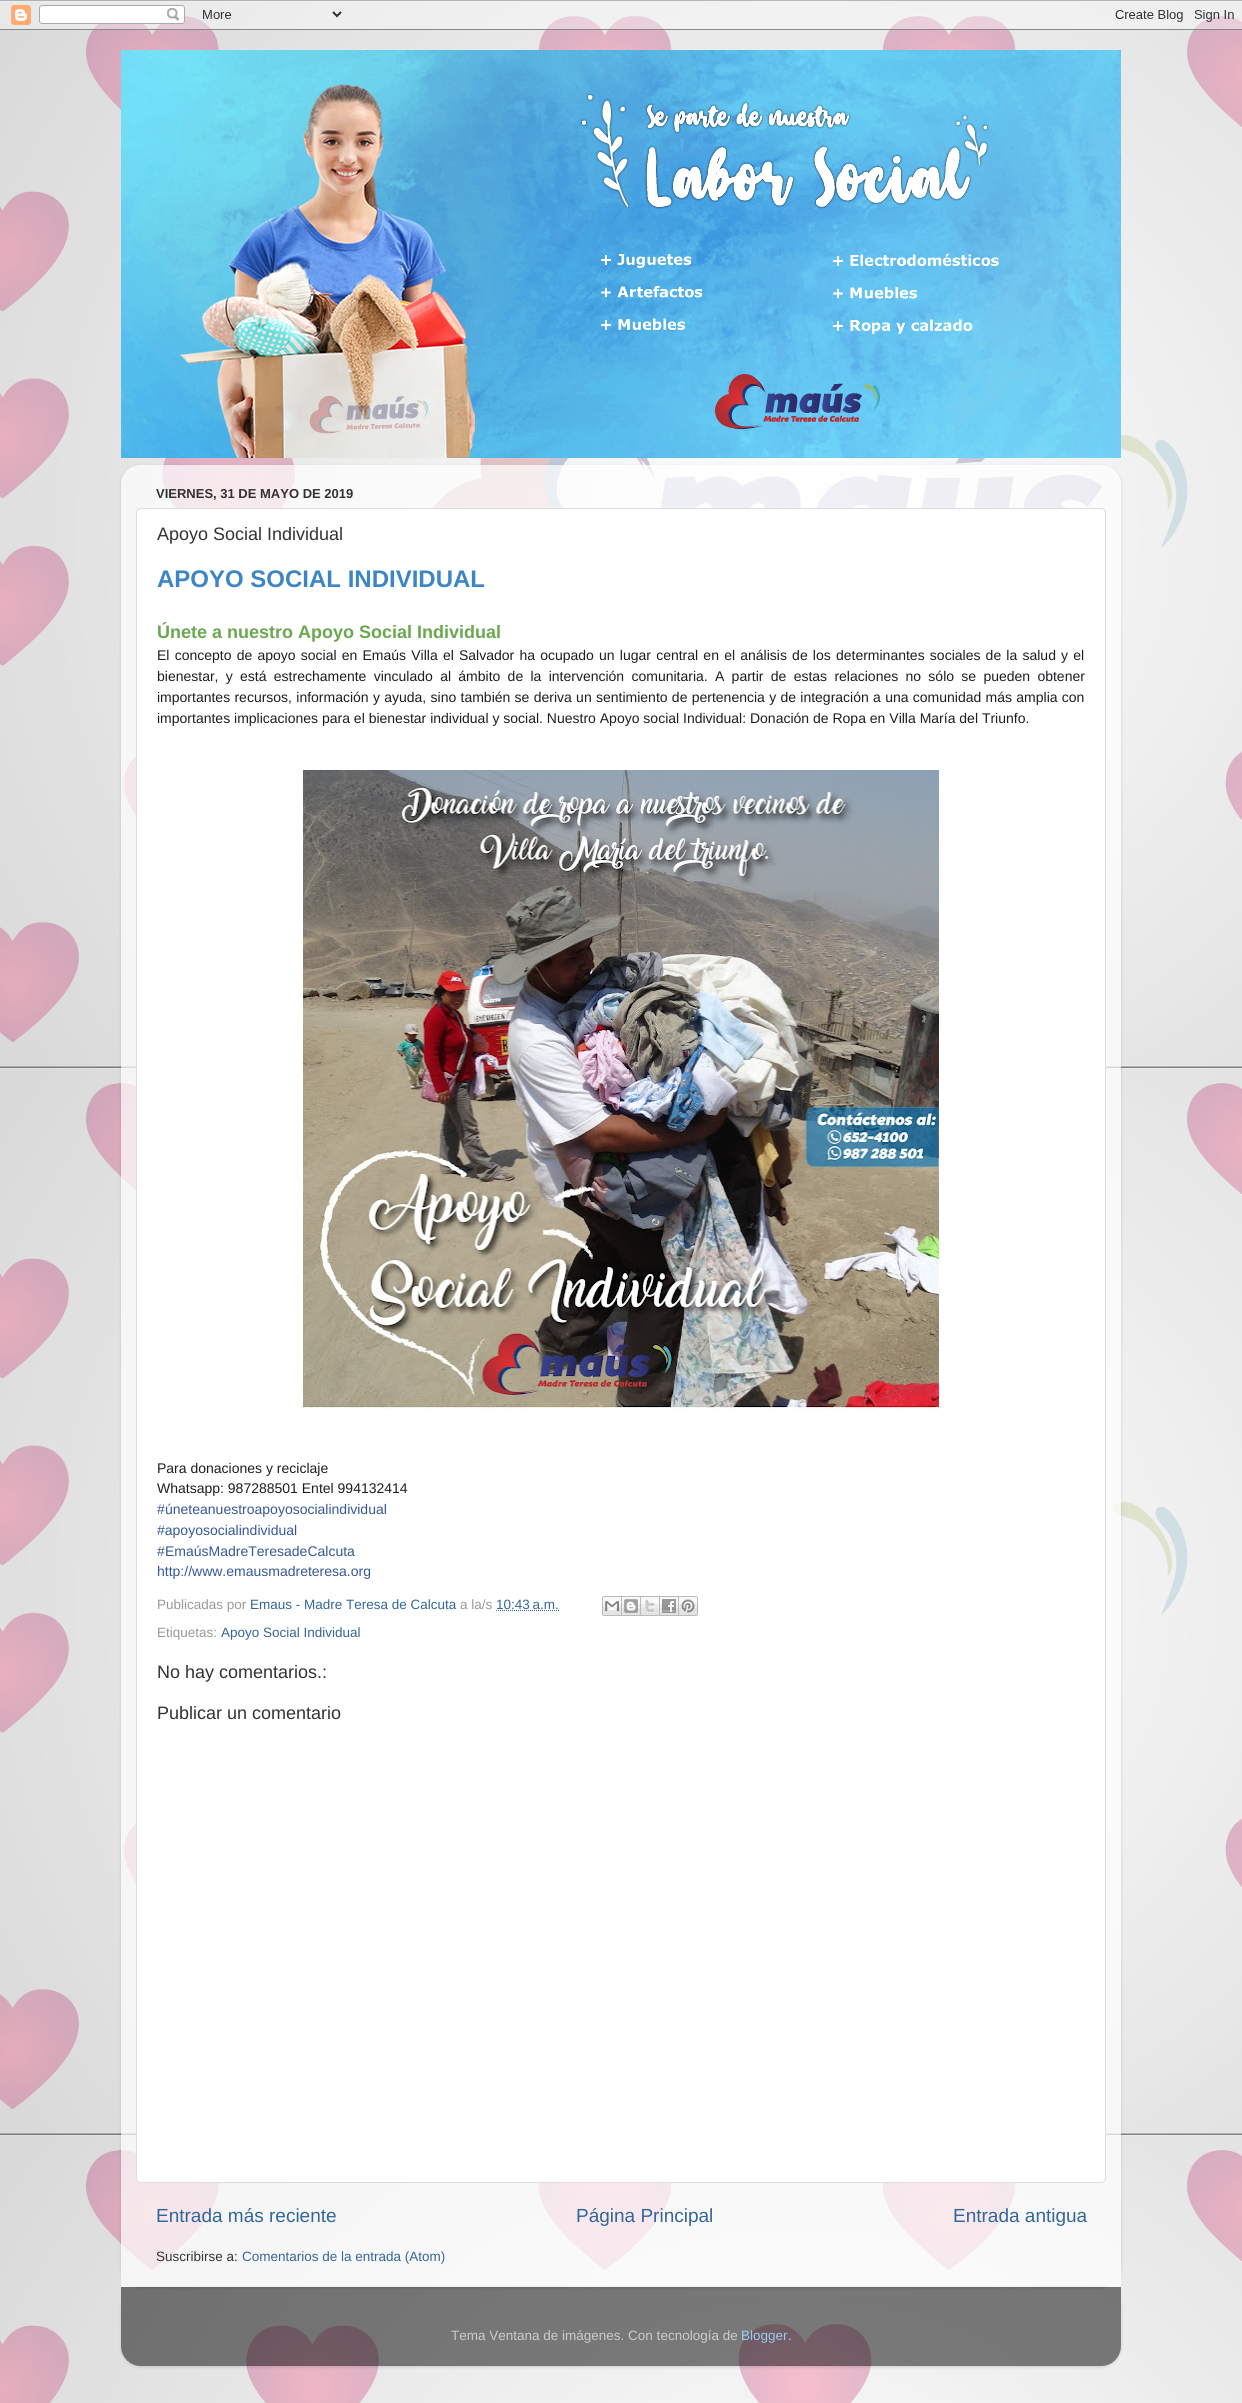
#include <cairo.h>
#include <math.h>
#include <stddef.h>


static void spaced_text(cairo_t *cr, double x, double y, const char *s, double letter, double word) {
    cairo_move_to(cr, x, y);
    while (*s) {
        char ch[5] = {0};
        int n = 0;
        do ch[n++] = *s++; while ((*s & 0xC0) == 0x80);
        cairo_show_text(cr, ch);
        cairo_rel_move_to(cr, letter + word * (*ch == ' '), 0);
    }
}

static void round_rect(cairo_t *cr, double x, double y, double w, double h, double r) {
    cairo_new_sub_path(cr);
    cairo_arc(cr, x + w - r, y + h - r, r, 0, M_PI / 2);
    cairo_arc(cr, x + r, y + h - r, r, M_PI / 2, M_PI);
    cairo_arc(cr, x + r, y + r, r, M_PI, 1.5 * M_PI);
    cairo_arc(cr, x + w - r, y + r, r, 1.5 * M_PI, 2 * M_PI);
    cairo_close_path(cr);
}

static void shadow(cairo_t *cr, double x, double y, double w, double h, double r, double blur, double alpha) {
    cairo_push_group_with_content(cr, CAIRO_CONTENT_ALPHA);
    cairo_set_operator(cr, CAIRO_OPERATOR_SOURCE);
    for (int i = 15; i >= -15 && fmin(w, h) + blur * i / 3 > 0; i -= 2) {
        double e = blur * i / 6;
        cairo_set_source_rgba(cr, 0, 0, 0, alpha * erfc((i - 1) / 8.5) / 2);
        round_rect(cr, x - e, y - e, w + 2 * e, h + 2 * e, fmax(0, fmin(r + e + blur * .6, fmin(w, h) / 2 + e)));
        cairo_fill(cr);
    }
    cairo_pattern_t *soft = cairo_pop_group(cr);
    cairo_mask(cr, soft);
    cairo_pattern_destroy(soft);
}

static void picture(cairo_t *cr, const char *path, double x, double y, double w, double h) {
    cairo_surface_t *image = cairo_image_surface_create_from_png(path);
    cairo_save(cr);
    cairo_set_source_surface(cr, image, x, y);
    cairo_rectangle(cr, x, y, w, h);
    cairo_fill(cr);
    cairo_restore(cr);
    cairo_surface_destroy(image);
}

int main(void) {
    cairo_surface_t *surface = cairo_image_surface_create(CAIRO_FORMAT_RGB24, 1242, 2403);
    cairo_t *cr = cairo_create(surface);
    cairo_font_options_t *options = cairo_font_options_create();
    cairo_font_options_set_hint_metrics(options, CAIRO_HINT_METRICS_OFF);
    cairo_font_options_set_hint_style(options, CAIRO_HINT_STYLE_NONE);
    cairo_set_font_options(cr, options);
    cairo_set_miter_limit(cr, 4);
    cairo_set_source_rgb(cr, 0.067, 0.067, 0.067);
    cairo_paint(cr);
    picture(cr, "img1.png", 0, 0, 1242, 2403);
    picture(cr, "img2.png", 0, 0, 1242, 30);
    picture(cr, "img3.png", 121, 50, 1000, 408);
    cairo_save(cr);
    cairo_set_fill_rule(cr, CAIRO_FILL_RULE_EVEN_ODD);
    cairo_new_path(cr);
    cairo_move_to(cr, 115, 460);
    cairo_line_to(cr, 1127, 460);
    cairo_line_to(cr, 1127, 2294);
    cairo_line_to(cr, 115, 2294);
    cairo_close_path(cr);
    cairo_move_to(cr, 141, 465);
    cairo_line_to(cr, 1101, 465);
    cairo_curve_to(cr, 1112, 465, 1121, 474, 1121, 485);
    cairo_line_to(cr, 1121, 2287);
    cairo_line_to(cr, 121, 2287);
    cairo_line_to(cr, 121, 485);
    cairo_curve_to(cr, 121, 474, 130, 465, 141, 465);
    cairo_close_path(cr);
    cairo_clip(cr);
    cairo_set_source_rgb(cr, 0, 0, 0);
    shadow(cr, 121, 466, 1000, 1822, 20, 1.5, 0.15);
    cairo_restore(cr);
    picture(cr, "img4.png", 121, 465, 1000, 1822);
    cairo_select_font_face(cr, "Liberation Sans", CAIRO_FONT_SLANT_NORMAL, CAIRO_FONT_WEIGHT_BOLD);
    cairo_set_font_size(cr, 13);
    cairo_set_source_rgb(cr, 0.2, 0.2, 0.2);
    cairo_move_to(cr, 156, 498);
    cairo_show_text(cr, "VIERNES, 31 DE MAYO DE 2019");
    cairo_set_source_rgb(cr, 1, 1, 1);
    round_rect(cr, 136.5, 508.5, 969, 1674, 4.5);
    cairo_fill_preserve(cr);
    cairo_set_source_rgb(cr, 0.867, 0.867, 0.867);
    cairo_set_line_width(cr, 1);
    cairo_stroke(cr);
    cairo_select_font_face(cr, "Liberation Sans", CAIRO_FONT_SLANT_NORMAL, CAIRO_FONT_WEIGHT_NORMAL);
    cairo_set_font_size(cr, 18);
    cairo_set_source_rgb(cr, 0.2, 0.2, 0.2);
    cairo_move_to(cr, 157, 540);
    cairo_show_text(cr, "Apoyo Social Individual");
    cairo_select_font_face(cr, "Liberation Sans", CAIRO_FONT_SLANT_NORMAL, CAIRO_FONT_WEIGHT_BOLD);
    cairo_set_font_size(cr, 24);
    cairo_set_source_rgb(cr, 0.239, 0.522, 0.776);
    cairo_move_to(cr, 157, 587);
    cairo_show_text(cr, "APOYO SOCIAL INDIVIDUAL");
    cairo_set_font_size(cr, 18);
    cairo_set_source_rgb(cr, 0.416, 0.659, 0.31);
    cairo_move_to(cr, 157, 638);
    cairo_show_text(cr, "Únete a nuestro Apoyo Social Individual");
    cairo_select_font_face(cr, "Liberation Sans", CAIRO_FONT_SLANT_NORMAL, CAIRO_FONT_WEIGHT_NORMAL);
    cairo_set_font_size(cr, 14);
    cairo_set_source_rgb(cr, 0.11, 0.118, 0.129);
    spaced_text(cr, 157, 660, "El concepto de apoyo social en Emaús Villa el Salvador ha ocupado un lugar central en el análisis de los determinantes sociales de la salud y el", 0, 1.3);
    spaced_text(cr, 157, 681, "bienestar, y está estrechamente vinculado al ámbito de la intervención comunitaria. A partir de estas relaciones no sólo se pueden obtener", 0, 3.4);
    spaced_text(cr, 157, 702, "importantes recursos, información y ayuda, sino también se deriva un sentimiento de pertenencia y de integración a una comunidad más amplia con", 0, 0.4);
    cairo_move_to(cr, 157, 723);
    cairo_show_text(cr, "importantes implicaciones para el bienestar individual y social. Nuestro Apoyo social Individual: Donación de Ropa en Villa María del Triunfo.");
    picture(cr, "img5.png", 303, 770, 636, 640);
    cairo_move_to(cr, 157, 1473);
    cairo_show_text(cr, "Para donaciones y reciclaje");
    cairo_move_to(cr, 157, 1493);
    cairo_show_text(cr, "Whatsapp: 987288501 Entel 994132414");
    cairo_set_source_rgb(cr, 0.212, 0.345, 0.6);
    cairo_move_to(cr, 157, 1514);
    cairo_show_text(cr, "#");
    cairo_move_to(cr, 165, 1514);
    cairo_show_text(cr, "úneteanuestroapoyosocialindividual");
    cairo_move_to(cr, 157, 1535);
    cairo_show_text(cr, "#apoyosocialindividual");
    cairo_move_to(cr, 157, 1556);
    cairo_show_text(cr, "#");
    cairo_move_to(cr, 165, 1556);
    cairo_show_text(cr, "EmaúsMadreTeresadeCalcuta");
    cairo_move_to(cr, 157, 1576);
    cairo_show_text(cr, "http://www.emausmadreteresa.org");
    cairo_set_font_size(cr, 13.5);
    cairo_set_source_rgb(cr, 0.6, 0.6, 0.6);
    cairo_move_to(cr, 157, 1609);
    cairo_show_text(cr, "Publicadas por");
    cairo_set_source_rgb(cr, 0.2, 0.4, 0.6);
    cairo_move_to(cr, 250, 1609);
    cairo_show_text(cr, "Emaus - Madre Teresa de Calcuta");
    cairo_set_source_rgb(cr, 0.6, 0.6, 0.6);
    cairo_move_to(cr, 460, 1609);
    cairo_show_text(cr, "a la/s");
    cairo_set_source_rgb(cr, 0.2, 0.4, 0.6);
    cairo_move_to(cr, 496, 1609);
    cairo_show_text(cr, "10:43 a.m.");
    cairo_new_path(cr);
    cairo_move_to(cr, 496, 1610.5);
    cairo_line_to(cr, 559, 1610.5);
    cairo_set_dash(cr, (double[]){1, 1}, 2, 0);
    cairo_stroke(cr);
    picture(cr, "img6.png", 602, 1596, 20, 20);
    picture(cr, "img7.png", 622, 1596, 19, 20);
    picture(cr, "img8.png", 641, 1596, 19, 20);
    picture(cr, "img9.png", 660, 1596, 19, 20);
    picture(cr, "img10.png", 679, 1596, 19, 20);
    cairo_set_source_rgb(cr, 0.6, 0.6, 0.6);
    cairo_move_to(cr, 157, 1637);
    cairo_show_text(cr, "Etiquetas:");
    cairo_set_source_rgb(cr, 0.2, 0.4, 0.6);
    cairo_move_to(cr, 221, 1637);
    cairo_show_text(cr, "Apoyo Social Individual");
    cairo_set_font_size(cr, 18);
    cairo_set_source_rgb(cr, 0.2, 0.2, 0.2);
    cairo_move_to(cr, 157, 1678);
    cairo_show_text(cr, "No hay comentarios.:");
    cairo_move_to(cr, 157, 1719);
    cairo_show_text(cr, "Publicar un comentario");
    cairo_set_font_size(cr, 19);
    cairo_set_source_rgb(cr, 0.2, 0.4, 0.6);
    cairo_move_to(cr, 156, 2222);
    cairo_show_text(cr, "Entrada más reciente");
    cairo_move_to(cr, 576, 2222);
    cairo_show_text(cr, "Página Principal");
    cairo_move_to(cr, 953, 2222);
    cairo_show_text(cr, "Entrada antigua");
    cairo_set_font_size(cr, 13.5);
    cairo_set_source_rgb(cr, 0.2, 0.2, 0.2);
    cairo_move_to(cr, 156, 2261);
    cairo_show_text(cr, "Suscribirse a:");
    cairo_set_source_rgb(cr, 0.2, 0.4, 0.6);
    cairo_move_to(cr, 242, 2261);
    cairo_show_text(cr, "Comentarios de la entrada (Atom)");
    cairo_save(cr);
    cairo_set_fill_rule(cr, CAIRO_FILL_RULE_EVEN_ODD);
    cairo_new_path(cr);
    cairo_move_to(cr, 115, 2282);
    cairo_line_to(cr, 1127, 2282);
    cairo_line_to(cr, 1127, 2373);
    cairo_line_to(cr, 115, 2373);
    cairo_close_path(cr);
    cairo_move_to(cr, 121, 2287);
    cairo_line_to(cr, 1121, 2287);
    cairo_line_to(cr, 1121, 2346);
    cairo_curve_to(cr, 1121, 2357, 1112, 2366, 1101, 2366);
    cairo_line_to(cr, 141, 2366);
    cairo_curve_to(cr, 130, 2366, 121, 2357, 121, 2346);
    cairo_close_path(cr);
    cairo_clip(cr);
    cairo_set_source_rgb(cr, 0, 0, 0);
    shadow(cr, 121, 2288, 1000, 79, 20, 1.5, 0.15);
    cairo_restore(cr);
    picture(cr, "img11.png", 121, 2287, 1000, 79);
    cairo_set_source_rgb(cr, 0.8, 0.8, 0.8);
    cairo_move_to(cr, 451, 2340);
    cairo_show_text(cr, "Tema Ventana de imágenes. Con tecnología de");
    cairo_set_source_rgb(cr, 0.6, 0.8, 0.933);
    cairo_move_to(cr, 741, 2340);
    cairo_show_text(cr, "Blogger");
    cairo_set_source_rgb(cr, 0.8, 0.8, 0.8);
    cairo_move_to(cr, 788, 2340);
    cairo_show_text(cr, ".");
    cairo_surface_write_to_png(surface, "page.png");
    cairo_font_options_destroy(options);
    cairo_destroy(cr);
    cairo_surface_destroy(surface);
    return 0;
}
